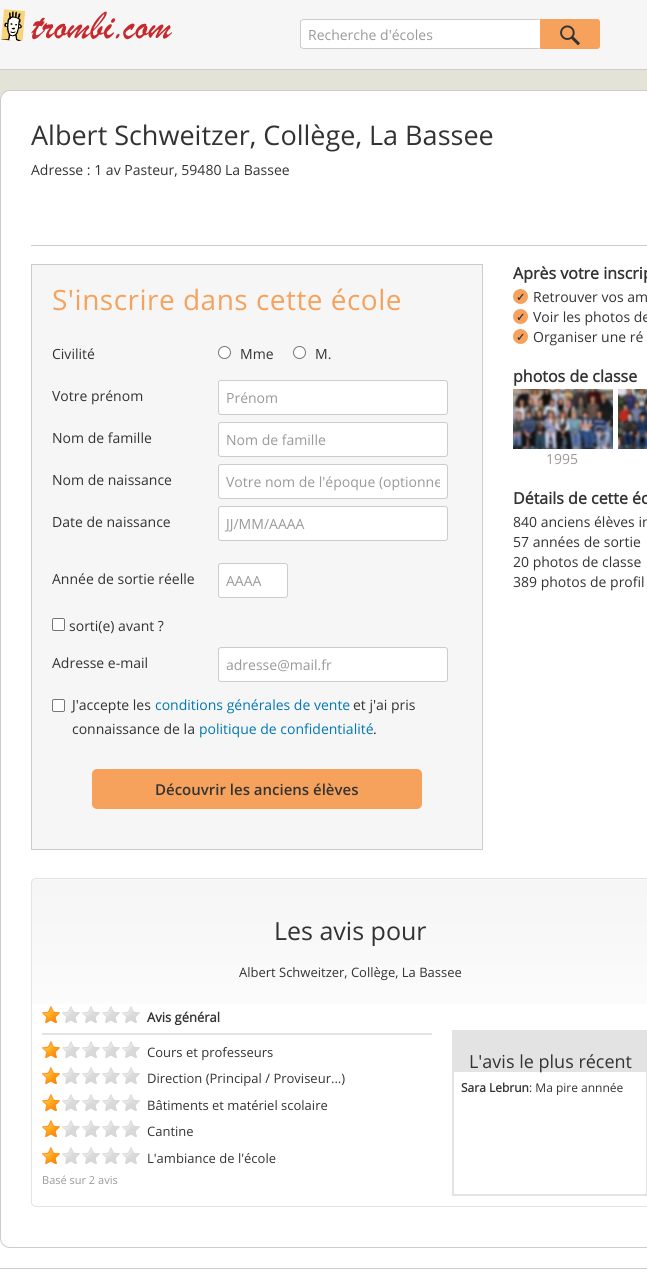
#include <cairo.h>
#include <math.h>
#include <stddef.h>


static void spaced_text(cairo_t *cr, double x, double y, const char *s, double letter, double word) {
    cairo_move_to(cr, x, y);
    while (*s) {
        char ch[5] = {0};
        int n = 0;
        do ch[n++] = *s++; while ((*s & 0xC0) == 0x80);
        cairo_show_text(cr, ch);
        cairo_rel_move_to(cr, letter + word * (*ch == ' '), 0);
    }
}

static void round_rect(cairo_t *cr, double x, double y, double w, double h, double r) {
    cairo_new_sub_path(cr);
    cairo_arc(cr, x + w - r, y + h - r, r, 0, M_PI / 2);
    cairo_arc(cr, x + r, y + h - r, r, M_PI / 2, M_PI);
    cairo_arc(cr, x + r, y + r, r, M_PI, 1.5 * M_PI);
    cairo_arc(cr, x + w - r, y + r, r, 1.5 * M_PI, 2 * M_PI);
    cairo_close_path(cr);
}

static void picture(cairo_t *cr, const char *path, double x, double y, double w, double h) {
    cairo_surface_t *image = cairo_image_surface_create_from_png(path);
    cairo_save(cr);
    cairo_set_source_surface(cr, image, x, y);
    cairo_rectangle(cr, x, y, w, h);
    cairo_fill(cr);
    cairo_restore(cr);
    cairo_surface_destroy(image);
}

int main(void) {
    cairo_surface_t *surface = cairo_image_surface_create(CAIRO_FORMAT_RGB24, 647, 1279);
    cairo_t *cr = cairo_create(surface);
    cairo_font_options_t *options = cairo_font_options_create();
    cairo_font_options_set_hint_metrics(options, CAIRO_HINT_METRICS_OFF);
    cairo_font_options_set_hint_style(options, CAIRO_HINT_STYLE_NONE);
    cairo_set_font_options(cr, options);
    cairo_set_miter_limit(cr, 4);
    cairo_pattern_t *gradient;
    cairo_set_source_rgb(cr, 1, 1, 1);
    cairo_paint(cr);
    gradient = cairo_pattern_create_linear(470, 0, 470, 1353);
    cairo_pattern_add_color_stop_rgba(gradient, 0.06, 0.894, 0.89, 0.847, 1);
    cairo_pattern_add_color_stop_rgba(gradient, 0.52, 0.996, 0.996, 0.996, 1);
    cairo_set_source(cr, gradient);
    cairo_pattern_destroy(gradient);
    cairo_rectangle(cr, 0, 70, 647, 609);
    cairo_fill(cr);
    cairo_set_source_rgb(cr, 0.961, 0.961, 0.961);
    cairo_rectangle(cr, 0, 0, 647, 69);
    cairo_fill(cr);
    cairo_set_source_rgb(cr, 0.8, 0.8, 0.8);
    cairo_rectangle(cr, 0, 69, 647, 1);
    cairo_fill(cr);
    picture(cr, "img1.png", 1, 9, 171, 32);
    cairo_set_source_rgb(cr, 1, 1, 1);
    cairo_new_path(cr);
    cairo_move_to(cr, 303, 19);
    cairo_line_to(cr, 540, 19);
    cairo_line_to(cr, 540, 49);
    cairo_line_to(cr, 303, 49);
    cairo_curve_to(cr, 301.5, 49, 300, 47.5, 300, 46);
    cairo_line_to(cr, 300, 22);
    cairo_curve_to(cr, 300, 20.5, 301.5, 19, 303, 19);
    cairo_close_path(cr);
    cairo_fill(cr);
    cairo_set_source_rgb(cr, 0.8, 0.8, 0.8);
    cairo_new_path(cr);
    cairo_move_to(cr, 303, 19);
    cairo_line_to(cr, 301, 20);
    cairo_line_to(cr, 302, 21);
    cairo_line_to(cr, 303, 20);
    cairo_line_to(cr, 539, 20);
    cairo_line_to(cr, 540, 19);
    cairo_close_path(cr);
    cairo_fill(cr);
    cairo_new_path(cr);
    cairo_move_to(cr, 540, 49);
    cairo_line_to(cr, 539, 48);
    cairo_line_to(cr, 303, 48);
    cairo_line_to(cr, 302, 47);
    cairo_line_to(cr, 301, 48);
    cairo_line_to(cr, 303, 49);
    cairo_close_path(cr);
    cairo_fill(cr);
    cairo_new_path(cr);
    cairo_move_to(cr, 300, 22);
    cairo_line_to(cr, 300, 46);
    cairo_curve_to(cr, 300, 47, 300, 48, 301, 48);
    cairo_line_to(cr, 301.5, 47.5);
    cairo_curve_to(cr, 301, 47, 301, 46.5, 301, 46);
    cairo_line_to(cr, 301, 22);
    cairo_curve_to(cr, 301, 21.5, 301, 21, 301.5, 20.5);
    cairo_line_to(cr, 301, 20);
    cairo_curve_to(cr, 300, 20, 300, 21, 300, 22);
    cairo_close_path(cr);
    cairo_fill(cr);
    cairo_select_font_face(cr, "Open Sans", CAIRO_FONT_SLANT_NORMAL, CAIRO_FONT_WEIGHT_NORMAL);
    cairo_set_font_size(cr, 14);
    cairo_set_source_rgb(cr, 0.6, 0.6, 0.6);
    cairo_move_to(cr, 308, 40);
    cairo_show_text(cr, "Recherche d'écoles");
    cairo_set_source_rgb(cr, 0.961, 0.635, 0.365);
    cairo_new_path(cr);
    cairo_move_to(cr, 540.5, 19.5);
    cairo_line_to(cr, 597, 19.5);
    cairo_curve_to(cr, 598.5, 19.5, 599.5, 20.5, 599.5, 22);
    cairo_line_to(cr, 599.5, 46);
    cairo_curve_to(cr, 599.5, 47.5, 598.5, 48.5, 597, 48.5);
    cairo_line_to(cr, 540.5, 48.5);
    cairo_close_path(cr);
    cairo_fill_preserve(cr);
    cairo_set_line_width(cr, 1);
    cairo_stroke(cr);
    picture(cr, "img2.png", 560, 25, 20, 21);
    cairo_set_source_rgb(cr, 1, 1, 1);
    round_rect(cr, 0.5, 90.5, 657, 1157, 9.5);
    cairo_fill_preserve(cr);
    cairo_set_source_rgb(cr, 0.8, 0.8, 0.8);
    cairo_stroke(cr);
    cairo_rectangle(cr, 31, 245, 616, 1);
    cairo_fill(cr);
    cairo_set_font_size(cr, 27);
    cairo_set_source_rgb(cr, 0.2, 0.2, 0.2);
    cairo_move_to(cr, 31, 145);
    cairo_show_text(cr, "Albert Schweitzer, Collège, La Bassee");
    cairo_set_font_size(cr, 14);
    cairo_move_to(cr, 31, 175);
    cairo_show_text(cr, "Adresse : 1 av Pasteur, 59480 La Bassee");
    cairo_set_source_rgb(cr, 0.961, 0.961, 0.961);
    cairo_rectangle(cr, 31.5, 264.5, 451, 585);
    cairo_fill_preserve(cr);
    cairo_set_source_rgb(cr, 0.8, 0.8, 0.8);
    cairo_stroke(cr);
    cairo_set_font_size(cr, 28);
    cairo_set_source_rgb(cr, 0.961, 0.635, 0.365);
    spaced_text(cr, 52, 310, "S'inscrire dans cette école", 0.5, 0);
    cairo_set_font_size(cr, 14);
    cairo_set_source_rgb(cr, 0.2, 0.2, 0.2);
    cairo_move_to(cr, 52, 359);
    cairo_show_text(cr, "Civilité");
    cairo_set_source_rgb(cr, 1, 1, 1);
    cairo_new_path(cr);
    cairo_arc(cr, 224.5, 352.5, 6, 0, 2 * M_PI);
    cairo_fill_preserve(cr);
    cairo_set_source_rgb(cr, 0.463, 0.463, 0.463);
    cairo_stroke(cr);
    cairo_set_source_rgb(cr, 0.2, 0.2, 0.2);
    cairo_move_to(cr, 240, 359);
    cairo_show_text(cr, "Mme");
    cairo_set_source_rgb(cr, 1, 1, 1);
    cairo_new_path(cr);
    cairo_arc(cr, 299.5, 352.5, 6, 0, 2 * M_PI);
    cairo_fill_preserve(cr);
    cairo_set_source_rgb(cr, 0.463, 0.463, 0.463);
    cairo_stroke(cr);
    cairo_set_source_rgb(cr, 0.2, 0.2, 0.2);
    cairo_move_to(cr, 315, 359);
    cairo_show_text(cr, "M.");
    cairo_move_to(cr, 52, 401);
    cairo_show_text(cr, "Votre prénom");
    cairo_set_source_rgb(cr, 1, 1, 1);
    round_rect(cr, 218.5, 380.5, 229, 34, 2.5);
    cairo_fill_preserve(cr);
    cairo_set_source_rgb(cr, 0.8, 0.8, 0.8);
    cairo_stroke(cr);
    cairo_set_source_rgb(cr, 0.6, 0.6, 0.6);
    cairo_move_to(cr, 226, 403);
    cairo_show_text(cr, "Prénom");
    cairo_set_source_rgb(cr, 0.2, 0.2, 0.2);
    cairo_move_to(cr, 52, 443);
    cairo_show_text(cr, "Nom de famille");
    cairo_set_source_rgb(cr, 1, 1, 1);
    round_rect(cr, 218.5, 422.5, 229, 34, 2.5);
    cairo_fill_preserve(cr);
    cairo_set_source_rgb(cr, 0.8, 0.8, 0.8);
    cairo_stroke(cr);
    cairo_set_source_rgb(cr, 0.6, 0.6, 0.6);
    cairo_move_to(cr, 226, 445);
    cairo_show_text(cr, "Nom de famille");
    cairo_set_source_rgb(cr, 0.2, 0.2, 0.2);
    cairo_move_to(cr, 52, 485);
    cairo_show_text(cr, "Nom de naissance");
    cairo_set_source_rgb(cr, 1, 1, 1);
    round_rect(cr, 218.5, 464.5, 229, 34, 2.5);
    cairo_fill_preserve(cr);
    cairo_set_source_rgb(cr, 0.8, 0.8, 0.8);
    cairo_stroke(cr);
    cairo_save(cr);
    cairo_rectangle(cr, 226, 472, 214, 19);
    cairo_clip(cr);
    cairo_set_source_rgb(cr, 0.6, 0.6, 0.6);
    cairo_move_to(cr, 226, 487);
    cairo_show_text(cr, "Votre nom de l'époque (optionne");
    cairo_restore(cr);
    cairo_set_source_rgb(cr, 0.2, 0.2, 0.2);
    cairo_move_to(cr, 52, 527);
    cairo_show_text(cr, "Date de naissance");
    cairo_set_source_rgb(cr, 1, 1, 1);
    round_rect(cr, 218.5, 506.5, 229, 34, 2.5);
    cairo_fill_preserve(cr);
    cairo_set_source_rgb(cr, 0.8, 0.8, 0.8);
    cairo_stroke(cr);
    cairo_set_source_rgb(cr, 0.6, 0.6, 0.6);
    cairo_move_to(cr, 226, 529);
    cairo_show_text(cr, "JJ/MM/AAAA");
    cairo_set_source_rgb(cr, 0.2, 0.2, 0.2);
    cairo_move_to(cr, 52, 584);
    cairo_show_text(cr, "Année de sortie réelle");
    cairo_set_source_rgb(cr, 1, 1, 1);
    round_rect(cr, 218.5, 563.5, 69, 34, 2.5);
    cairo_fill_preserve(cr);
    cairo_set_source_rgb(cr, 0.8, 0.8, 0.8);
    cairo_stroke(cr);
    cairo_set_source_rgb(cr, 0.6, 0.6, 0.6);
    cairo_move_to(cr, 226, 586);
    cairo_show_text(cr, "AAAA");
    cairo_set_source_rgb(cr, 1, 1, 1);
    round_rect(cr, 52.5, 618.5, 12, 12, 1.5);
    cairo_fill_preserve(cr);
    cairo_set_source_rgb(cr, 0.463, 0.463, 0.463);
    cairo_stroke(cr);
    cairo_set_source_rgb(cr, 0.2, 0.2, 0.2);
    cairo_move_to(cr, 69, 631);
    cairo_show_text(cr, "sorti(e) avant ?");
    cairo_move_to(cr, 52, 668);
    cairo_show_text(cr, "Adresse e-mail");
    cairo_set_source_rgb(cr, 1, 1, 1);
    round_rect(cr, 218.5, 647.5, 229, 34, 2.5);
    cairo_fill_preserve(cr);
    cairo_set_source_rgb(cr, 0.8, 0.8, 0.8);
    cairo_stroke(cr);
    cairo_set_source_rgb(cr, 0.6, 0.6, 0.6);
    cairo_move_to(cr, 226, 670);
    cairo_show_text(cr, "adresse@mail.fr");
    cairo_set_source_rgb(cr, 1, 1, 1);
    round_rect(cr, 52.5, 699.5, 12, 12, 1.5);
    cairo_fill_preserve(cr);
    cairo_set_source_rgb(cr, 0.463, 0.463, 0.463);
    cairo_stroke(cr);
    cairo_set_source_rgb(cr, 0.2, 0.2, 0.2);
    cairo_move_to(cr, 72, 710);
    cairo_show_text(cr, "J'accepte les");
    cairo_set_source_rgb(cr, 0, 0.467, 0.698);
    cairo_move_to(cr, 155, 710);
    cairo_show_text(cr, "conditions générales de vente");
    cairo_set_source_rgb(cr, 0.2, 0.2, 0.2);
    cairo_move_to(cr, 353, 710);
    cairo_show_text(cr, "et j'ai pris");
    cairo_move_to(cr, 72, 734);
    cairo_show_text(cr, "connaissance de la");
    cairo_set_source_rgb(cr, 0, 0.467, 0.698);
    cairo_move_to(cr, 199, 734);
    cairo_show_text(cr, "politique de confidentialité");
    cairo_set_source_rgb(cr, 0.2, 0.2, 0.2);
    cairo_move_to(cr, 373, 734);
    cairo_show_text(cr, ".");
    cairo_set_source_rgb(cr, 0.961, 0.635, 0.365);
    round_rect(cr, 92, 769, 330, 40, 5);
    cairo_fill(cr);
    cairo_select_font_face(cr, "Open Sans SemiBold", CAIRO_FONT_SLANT_NORMAL, CAIRO_FONT_WEIGHT_NORMAL);
    cairo_set_font_size(cr, 15);
    cairo_set_source_rgb(cr, 0.2, 0.2, 0.2);
    cairo_move_to(cr, 155, 795);
    cairo_show_text(cr, "Découvrir les anciens élèves");
    cairo_select_font_face(cr, "Open Sans", CAIRO_FONT_SLANT_NORMAL, CAIRO_FONT_WEIGHT_BOLD);
    cairo_set_font_size(cr, 16);
    cairo_move_to(cr, 513, 279);
    cairo_show_text(cr, "Après votre inscrip");
    cairo_set_source_rgb(cr, 0.961, 0.635, 0.365);
    cairo_new_path(cr);
    cairo_arc(cr, 520.5, 296.5, 7.5, 0, 2 * M_PI);
    cairo_fill(cr);
    cairo_select_font_face(cr, "DejaVu Sans", CAIRO_FONT_SLANT_NORMAL, CAIRO_FONT_WEIGHT_BOLD);
    cairo_set_font_size(cr, 11);
    cairo_set_source_rgb(cr, 0.2, 0.2, 0.2);
    cairo_move_to(cr, 516, 301);
    cairo_show_text(cr, "✓");
    cairo_select_font_face(cr, "Open Sans", CAIRO_FONT_SLANT_NORMAL, CAIRO_FONT_WEIGHT_NORMAL);
    cairo_set_font_size(cr, 14);
    cairo_move_to(cr, 533, 302);
    cairo_show_text(cr, "Retrouver vos am");
    cairo_set_source_rgb(cr, 0.961, 0.635, 0.365);
    cairo_new_path(cr);
    cairo_arc(cr, 520.5, 316.5, 7.5, 0, 2 * M_PI);
    cairo_fill(cr);
    cairo_select_font_face(cr, "DejaVu Sans", CAIRO_FONT_SLANT_NORMAL, CAIRO_FONT_WEIGHT_BOLD);
    cairo_set_font_size(cr, 11);
    cairo_set_source_rgb(cr, 0.2, 0.2, 0.2);
    cairo_move_to(cr, 516, 321);
    cairo_show_text(cr, "✓");
    cairo_select_font_face(cr, "Open Sans", CAIRO_FONT_SLANT_NORMAL, CAIRO_FONT_WEIGHT_NORMAL);
    cairo_set_font_size(cr, 14);
    cairo_move_to(cr, 533, 322);
    cairo_show_text(cr, "Voir les photos de");
    cairo_set_source_rgb(cr, 0.961, 0.635, 0.365);
    cairo_new_path(cr);
    cairo_arc(cr, 520.5, 336.5, 7.5, 0, 2 * M_PI);
    cairo_fill(cr);
    cairo_select_font_face(cr, "DejaVu Sans", CAIRO_FONT_SLANT_NORMAL, CAIRO_FONT_WEIGHT_BOLD);
    cairo_set_font_size(cr, 11);
    cairo_set_source_rgb(cr, 0.2, 0.2, 0.2);
    cairo_move_to(cr, 516, 341);
    cairo_show_text(cr, "✓");
    cairo_select_font_face(cr, "Open Sans", CAIRO_FONT_SLANT_NORMAL, CAIRO_FONT_WEIGHT_NORMAL);
    cairo_set_font_size(cr, 14);
    cairo_move_to(cr, 533, 342);
    cairo_show_text(cr, "Organiser une ré");
    cairo_select_font_face(cr, "Open Sans", CAIRO_FONT_SLANT_NORMAL, CAIRO_FONT_WEIGHT_BOLD);
    cairo_set_font_size(cr, 16);
    cairo_move_to(cr, 513, 382);
    cairo_show_text(cr, "photos de classe");
    picture(cr, "img3.png", 618, 389, 29, 60);
    picture(cr, "img4.png", 513, 389, 100, 60);
    cairo_select_font_face(cr, "Open Sans", CAIRO_FONT_SLANT_NORMAL, CAIRO_FONT_WEIGHT_NORMAL);
    cairo_set_font_size(cr, 14);
    cairo_set_source_rgb(cr, 0.6, 0.6, 0.6);
    cairo_move_to(cr, 546, 464);
    cairo_show_text(cr, "1995");
    cairo_select_font_face(cr, "Open Sans", CAIRO_FONT_SLANT_NORMAL, CAIRO_FONT_WEIGHT_BOLD);
    cairo_set_font_size(cr, 16);
    cairo_set_source_rgb(cr, 0.2, 0.2, 0.2);
    cairo_move_to(cr, 513, 504);
    cairo_show_text(cr, "Détails de cette éc");
    cairo_select_font_face(cr, "Open Sans", CAIRO_FONT_SLANT_NORMAL, CAIRO_FONT_WEIGHT_NORMAL);
    cairo_set_font_size(cr, 14);
    cairo_move_to(cr, 513, 527);
    cairo_show_text(cr, "840 anciens élèves in");
    cairo_move_to(cr, 513, 547);
    cairo_show_text(cr, "57 années de sortie");
    cairo_move_to(cr, 513, 567);
    cairo_show_text(cr, "20 photos de classe");
    cairo_move_to(cr, 513, 587);
    cairo_show_text(cr, "389 photos de profil");
    picture(cr, "img5.png", 31, 879, 616, 125);
    round_rect(cr, 31.5, 878.5, 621, 328, 4.5);
    cairo_set_source_rgb(cr, 0.89, 0.89, 0.89);
    cairo_stroke(cr);
    cairo_set_font_size(cr, 25);
    cairo_set_source_rgb(cr, 0.2, 0.2, 0.2);
    cairo_move_to(cr, 274, 940);
    cairo_show_text(cr, "Les avis pour");
    cairo_set_font_size(cr, 13);
    cairo_move_to(cr, 239, 977);
    cairo_show_text(cr, "Albert Schweitzer, Collège, La Bassee");
    picture(cr, "img6.png", 42, 1006, 18, 17);
    picture(cr, "img7.png", 62, 1006, 18, 17);
    picture(cr, "img7.png", 82, 1006, 18, 17);
    picture(cr, "img7.png", 102, 1006, 18, 17);
    picture(cr, "img7.png", 122, 1006, 18, 17);
    cairo_select_font_face(cr, "Open Sans", CAIRO_FONT_SLANT_NORMAL, CAIRO_FONT_WEIGHT_BOLD);
    cairo_move_to(cr, 147, 1022);
    cairo_show_text(cr, "Avis général");
    cairo_set_source_rgb(cr, 0.89, 0.89, 0.89);
    cairo_rectangle(cr, 42, 1033, 390, 2);
    cairo_fill(cr);
    picture(cr, "img6.png", 42, 1041, 18, 17);
    picture(cr, "img7.png", 62, 1041, 18, 17);
    picture(cr, "img7.png", 82, 1041, 18, 17);
    picture(cr, "img7.png", 102, 1041, 18, 17);
    picture(cr, "img7.png", 122, 1041, 18, 17);
    cairo_select_font_face(cr, "Open Sans", CAIRO_FONT_SLANT_NORMAL, CAIRO_FONT_WEIGHT_NORMAL);
    cairo_set_source_rgb(cr, 0.2, 0.2, 0.2);
    cairo_move_to(cr, 147, 1057);
    cairo_show_text(cr, "Cours et professeurs");
    picture(cr, "img6.png", 42, 1067, 18, 17);
    picture(cr, "img7.png", 62, 1067, 18, 17);
    picture(cr, "img7.png", 82, 1067, 18, 17);
    picture(cr, "img7.png", 102, 1067, 18, 17);
    picture(cr, "img7.png", 122, 1067, 18, 17);
    cairo_move_to(cr, 147, 1083);
    cairo_show_text(cr, "Direction (Principal / Proviseur...)");
    picture(cr, "img6.png", 42, 1094, 18, 17);
    picture(cr, "img7.png", 62, 1094, 18, 17);
    picture(cr, "img7.png", 82, 1094, 18, 17);
    picture(cr, "img7.png", 102, 1094, 18, 17);
    picture(cr, "img7.png", 122, 1094, 18, 17);
    cairo_move_to(cr, 147, 1110);
    cairo_show_text(cr, "Bâtiments et matériel scolaire");
    picture(cr, "img6.png", 42, 1120, 18, 17);
    picture(cr, "img7.png", 62, 1120, 18, 17);
    picture(cr, "img7.png", 82, 1120, 18, 17);
    picture(cr, "img7.png", 102, 1120, 18, 17);
    picture(cr, "img7.png", 122, 1120, 18, 17);
    cairo_move_to(cr, 147, 1136);
    cairo_show_text(cr, "Cantine");
    picture(cr, "img6.png", 42, 1147, 18, 17);
    picture(cr, "img7.png", 62, 1147, 18, 17);
    picture(cr, "img7.png", 82, 1147, 18, 17);
    picture(cr, "img7.png", 102, 1147, 18, 17);
    picture(cr, "img7.png", 122, 1147, 18, 17);
    cairo_move_to(cr, 147, 1163);
    cairo_show_text(cr, "L'ambiance de l'école");
    cairo_set_font_size(cr, 11);
    cairo_set_source_rgb(cr, 0.6, 0.6, 0.6);
    cairo_move_to(cr, 42, 1184);
    cairo_show_text(cr, "Basé sur 2 avis");
    cairo_rectangle(cr, 453, 1031, 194, 164);
    cairo_set_source_rgb(cr, 0.89, 0.89, 0.89);
    cairo_set_line_width(cr, 2);
    cairo_stroke(cr);
    cairo_rectangle(cr, 454, 1032, 192, 40);
    cairo_fill(cr);
    cairo_set_font_size(cr, 18);
    cairo_set_source_rgb(cr, 0.2, 0.2, 0.2);
    cairo_move_to(cr, 469, 1068);
    cairo_show_text(cr, "L'avis le plus récent");
    cairo_select_font_face(cr, "Open Sans", CAIRO_FONT_SLANT_NORMAL, CAIRO_FONT_WEIGHT_BOLD);
    cairo_set_font_size(cr, 12);
    cairo_move_to(cr, 461, 1092);
    cairo_show_text(cr, "Sara Lebrun");
    cairo_select_font_face(cr, "Open Sans", CAIRO_FONT_SLANT_NORMAL, CAIRO_FONT_WEIGHT_NORMAL);
    cairo_move_to(cr, 529, 1092);
    cairo_show_text(cr, ": Ma pire annnée");
    cairo_set_source_rgb(cr, 0.8, 0.8, 0.8);
    cairo_rectangle(cr, 0, 1268, 647, 1);
    cairo_fill(cr);
    cairo_surface_write_to_png(surface, "page.png");
    cairo_font_options_destroy(options);
    cairo_destroy(cr);
    cairo_surface_destroy(surface);
    return 0;
}
